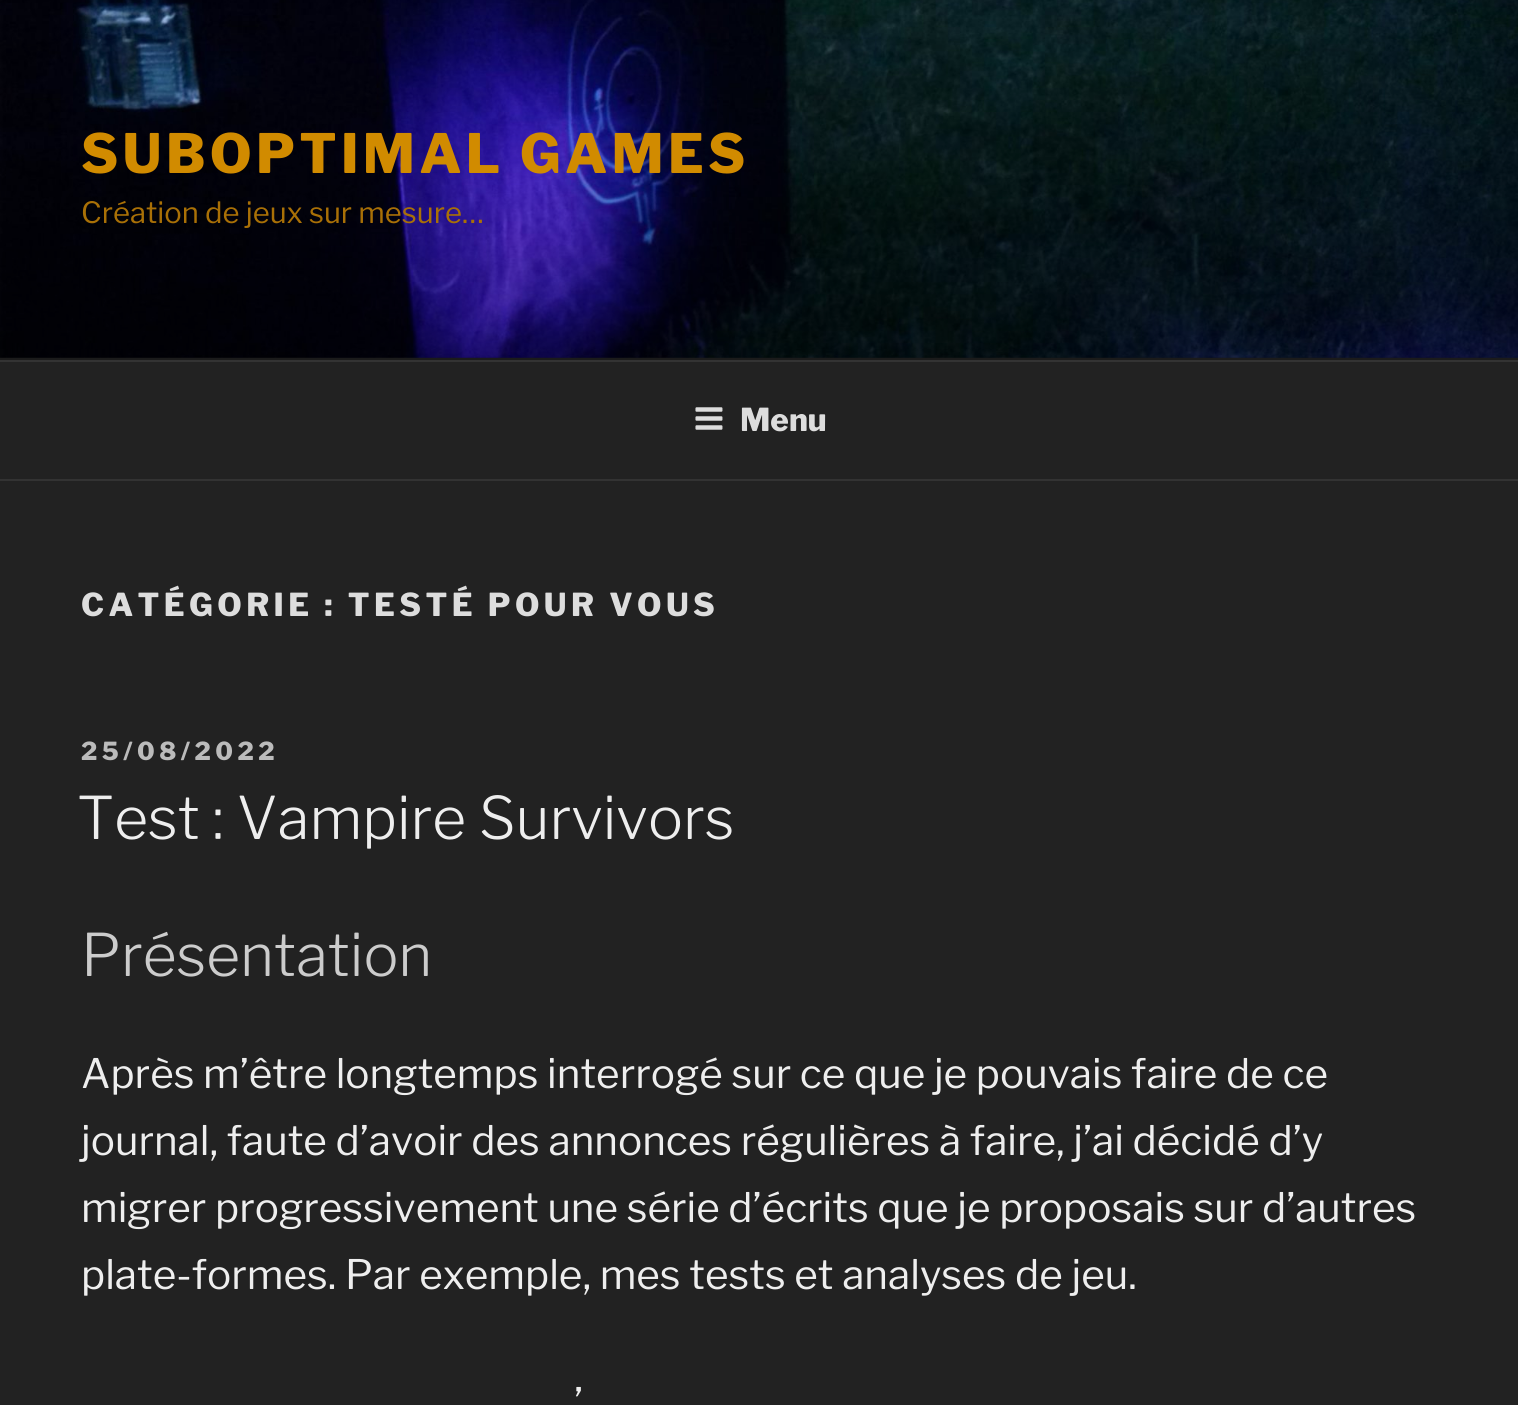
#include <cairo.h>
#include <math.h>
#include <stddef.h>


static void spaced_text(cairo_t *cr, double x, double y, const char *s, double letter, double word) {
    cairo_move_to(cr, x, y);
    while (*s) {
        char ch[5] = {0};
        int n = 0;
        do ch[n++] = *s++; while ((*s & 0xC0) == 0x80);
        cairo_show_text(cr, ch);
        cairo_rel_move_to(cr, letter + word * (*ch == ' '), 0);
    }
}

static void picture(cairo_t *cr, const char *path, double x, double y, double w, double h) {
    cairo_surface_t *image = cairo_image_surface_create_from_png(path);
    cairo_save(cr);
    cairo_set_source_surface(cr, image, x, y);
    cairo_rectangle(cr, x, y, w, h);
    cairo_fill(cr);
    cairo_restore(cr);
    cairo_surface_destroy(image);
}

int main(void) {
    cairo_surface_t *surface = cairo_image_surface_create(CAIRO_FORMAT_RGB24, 1518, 1405);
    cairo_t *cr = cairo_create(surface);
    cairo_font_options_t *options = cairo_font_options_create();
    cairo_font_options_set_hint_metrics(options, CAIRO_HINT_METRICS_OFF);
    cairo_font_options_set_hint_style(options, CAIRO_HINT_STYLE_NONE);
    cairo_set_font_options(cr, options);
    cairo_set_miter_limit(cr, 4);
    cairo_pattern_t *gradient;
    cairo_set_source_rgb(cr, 0.133, 0.133, 0.133);
    cairo_paint(cr);
    cairo_set_source_rgb(cr, 0.149, 0.149, 0.149);
    cairo_rectangle(cr, 0, 357, 1518, 3);
    cairo_fill(cr);
    picture(cr, "img1.png", 0, 0, 1518, 358);
    gradient = cairo_pattern_create_linear(759, 0, 759, 360);
    cairo_pattern_add_color_stop_rgba(gradient, 0, 0, 0, 0, 0);
    cairo_pattern_add_color_stop_rgba(gradient, 0.75, 0, 0, 0, 0.3);
    cairo_pattern_add_color_stop_rgba(gradient, 1, 0, 0, 0, 0.3);
    cairo_set_source(cr, gradient);
    cairo_pattern_destroy(gradient);
    cairo_rectangle(cr, 0, 19, 1518, 341);
    cairo_fill(cr);
    cairo_select_font_face(cr, "Libre Franklin Thin", CAIRO_FONT_SLANT_NORMAL, CAIRO_FONT_WEIGHT_NORMAL);
    cairo_set_font_size(cr, 54);
    cairo_set_source_rgb(cr, 0.82, 0.545, 0);
    spaced_text(cr, 81, 173, "SUBOPTIMAL GAMES", 4.3, 0);
    cairo_select_font_face(cr, "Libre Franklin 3 Thin", CAIRO_FONT_SLANT_NORMAL, CAIRO_FONT_WEIGHT_NORMAL);
    cairo_set_font_size(cr, 29.25);
    cairo_set_source_rgb(cr, 0.663, 0.439, 0.027);
    cairo_move_to(cr, 81, 223);
    cairo_show_text(cr, "Création de jeux sur mesure…");
    cairo_set_source_rgb(cr, 0.2, 0.2, 0.2);
    cairo_rectangle(cr, 0, 360, 1518, 2);
    cairo_fill(cr);
    cairo_rectangle(cr, 0, 479, 1518, 2);
    cairo_fill(cr);
    picture(cr, "img2.png", 695, 407, 28, 23);
    cairo_select_font_face(cr, "Libre Franklin Thin", CAIRO_FONT_SLANT_NORMAL, CAIRO_FONT_WEIGHT_NORMAL);
    cairo_set_font_size(cr, 31.5);
    cairo_set_source_rgb(cr, 0.867, 0.867, 0.867);
    cairo_move_to(cr, 740, 431);
    cairo_show_text(cr, "Menu");
    spaced_text(cr, 81, 616, "CATÉGORIE : TESTÉ POUR VOUS", 4.4, 0);
    cairo_set_font_size(cr, 24.75);
    cairo_set_source_rgb(cr, 0.733, 0.733, 0.733);
    spaced_text(cr, 81, 760, "25/08/2022", 4.5, 0);
    cairo_select_font_face(cr, "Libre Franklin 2 Thin", CAIRO_FONT_SLANT_NORMAL, CAIRO_FONT_WEIGHT_NORMAL);
    cairo_set_font_size(cr, 58.5);
    cairo_set_source_rgb(cr, 0.933, 0.933, 0.933);
    cairo_move_to(cr, 77, 839);
    cairo_show_text(cr, "Test : Vampire Survivors");
    cairo_set_source_rgb(cr, 0.8, 0.8, 0.8);
    cairo_move_to(cr, 81, 976);
    cairo_show_text(cr, "Présentation");
    cairo_select_font_face(cr, "Libre Franklin 3 Thin", CAIRO_FONT_SLANT_NORMAL, CAIRO_FONT_WEIGHT_NORMAL);
    cairo_set_font_size(cr, 40.5);
    cairo_set_source_rgb(cr, 0.933, 0.933, 0.933);
    cairo_move_to(cr, 81, 1088);
    cairo_show_text(cr, "Après m’être longtemps interrogé sur ce que je pouvais faire de ce");
    cairo_move_to(cr, 81, 1155);
    cairo_show_text(cr, "journal, faute d’avoir des annonces régulières à faire, j’ai décidé d’y");
    cairo_move_to(cr, 81, 1222);
    cairo_show_text(cr, "migrer progressivement une série d’écrits que je proposais sur d’autres");
    cairo_move_to(cr, 81, 1289);
    cairo_show_text(cr, "plate-formes. Par exemple, mes tests et analyses de jeu.");
    cairo_move_to(cr, 574, 1417);
    cairo_show_text(cr, "’");
    cairo_surface_write_to_png(surface, "page.png");
    cairo_font_options_destroy(options);
    cairo_destroy(cr);
    cairo_surface_destroy(surface);
    return 0;
}
